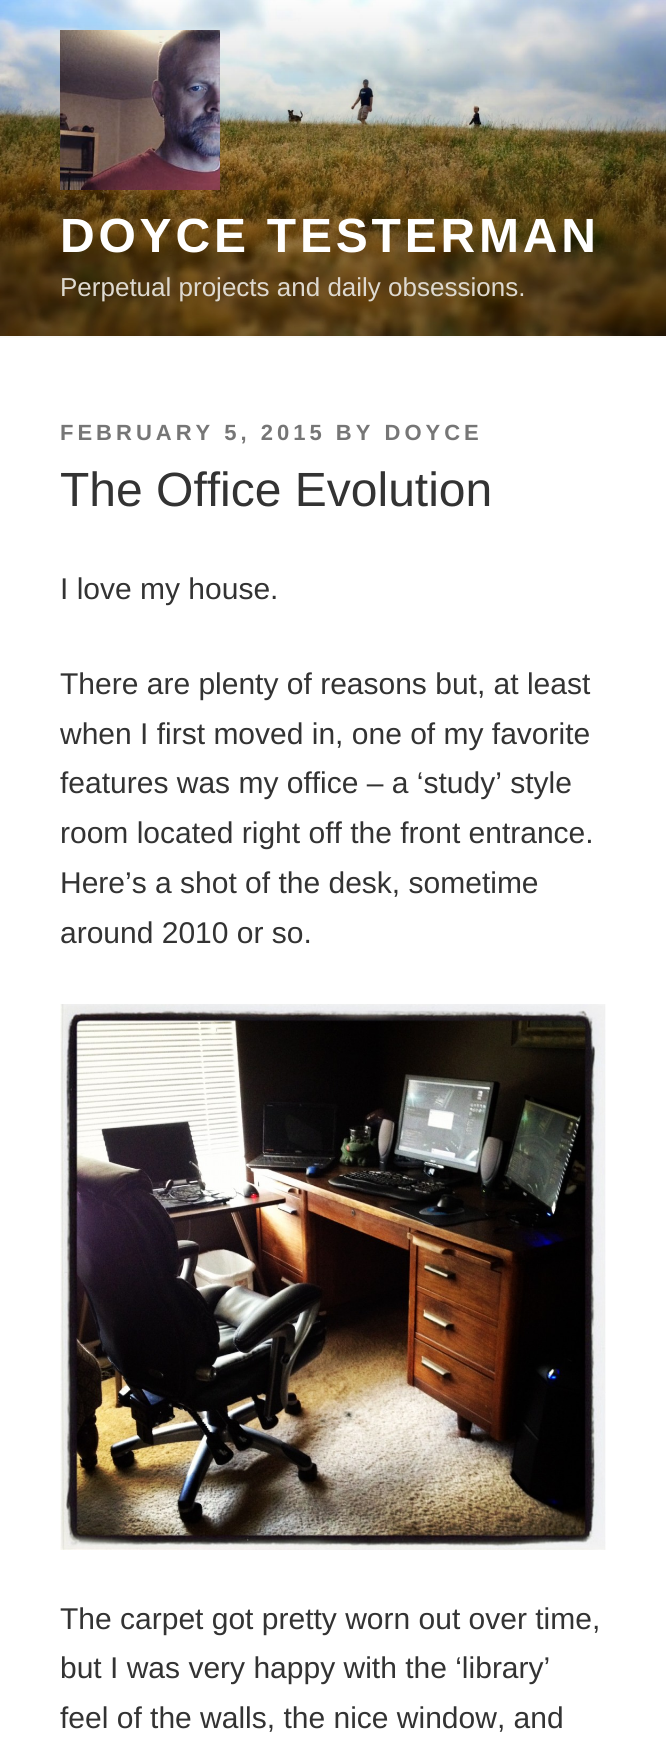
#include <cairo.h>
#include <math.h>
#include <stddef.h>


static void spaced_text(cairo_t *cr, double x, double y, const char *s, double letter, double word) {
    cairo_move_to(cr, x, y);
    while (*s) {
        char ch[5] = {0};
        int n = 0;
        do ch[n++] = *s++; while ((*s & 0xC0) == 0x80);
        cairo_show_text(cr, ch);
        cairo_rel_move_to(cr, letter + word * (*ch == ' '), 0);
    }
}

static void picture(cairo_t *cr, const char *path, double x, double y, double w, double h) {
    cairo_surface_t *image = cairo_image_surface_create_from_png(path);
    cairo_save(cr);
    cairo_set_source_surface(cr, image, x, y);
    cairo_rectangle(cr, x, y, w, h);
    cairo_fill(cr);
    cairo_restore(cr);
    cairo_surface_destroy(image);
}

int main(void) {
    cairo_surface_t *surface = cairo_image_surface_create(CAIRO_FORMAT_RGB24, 666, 1762);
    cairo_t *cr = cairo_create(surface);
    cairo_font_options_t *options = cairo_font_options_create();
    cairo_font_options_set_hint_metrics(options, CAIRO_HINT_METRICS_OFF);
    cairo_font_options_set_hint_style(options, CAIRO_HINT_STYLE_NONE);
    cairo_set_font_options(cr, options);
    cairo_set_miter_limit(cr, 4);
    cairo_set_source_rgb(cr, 1, 1, 1);
    cairo_paint(cr);
    cairo_set_source_rgb(cr, 0.98, 0.98, 0.98);
    cairo_rectangle(cr, 0, 336, 666, 2);
    cairo_fill(cr);
    picture(cr, "img1.png", 0, 0, 666, 336);
    picture(cr, "img2.png", 60, 30, 160, 160);
    cairo_select_font_face(cr, "Liberation Sans", CAIRO_FONT_SLANT_NORMAL, CAIRO_FONT_WEIGHT_BOLD);
    cairo_set_font_size(cr, 48);
    cairo_set_source_rgb(cr, 1, 1, 1);
    spaced_text(cr, 60, 252, "DOYCE TESTERMAN", 3.8, 0);
    cairo_select_font_face(cr, "Liberation Sans", CAIRO_FONT_SLANT_NORMAL, CAIRO_FONT_WEIGHT_NORMAL);
    cairo_set_font_size(cr, 26);
    cairo_set_source_rgb(cr, 0.871, 0.851, 0.816);
    cairo_move_to(cr, 60, 296);
    cairo_show_text(cr, "Perpetual projects and daily obsessions.");
    cairo_select_font_face(cr, "Liberation Sans", CAIRO_FONT_SLANT_NORMAL, CAIRO_FONT_WEIGHT_BOLD);
    cairo_set_font_size(cr, 22);
    cairo_set_source_rgb(cr, 0.463, 0.463, 0.463);
    spaced_text(cr, 60, 440, "FEBRUARY 5, 2015 BY DOYCE", 4, 0);
    cairo_select_font_face(cr, "Liberation Sans", CAIRO_FONT_SLANT_NORMAL, CAIRO_FONT_WEIGHT_NORMAL);
    cairo_set_font_size(cr, 48);
    cairo_set_source_rgb(cr, 0.2, 0.2, 0.2);
    cairo_move_to(cr, 60, 506);
    cairo_show_text(cr, "The Office Evolution");
    cairo_set_font_size(cr, 30);
    cairo_move_to(cr, 60, 599);
    cairo_show_text(cr, "I love my house.");
    cairo_move_to(cr, 60, 694);
    cairo_show_text(cr, "There are plenty of reasons but, at least");
    cairo_move_to(cr, 60, 744);
    cairo_show_text(cr, "when I first moved in, one of my favorite");
    cairo_move_to(cr, 60, 793);
    cairo_show_text(cr, "features was my office – a ‘study’ style");
    cairo_move_to(cr, 60, 843);
    cairo_show_text(cr, "room located right off the front entrance.");
    cairo_move_to(cr, 60, 893);
    cairo_show_text(cr, "Here’s a shot of the desk, sometime");
    cairo_move_to(cr, 60, 943);
    cairo_show_text(cr, "around 2010 or so.");
    picture(cr, "img3.png", 60, 1004, 546, 546);
    cairo_move_to(cr, 60, 1629);
    cairo_show_text(cr, "The carpet got pretty worn out over time,");
    cairo_move_to(cr, 60, 1678);
    cairo_show_text(cr, "but I was very happy with the ‘library’");
    cairo_move_to(cr, 60, 1728);
    cairo_show_text(cr, "feel of the walls, the nice window, and");
    cairo_surface_write_to_png(surface, "page.png");
    cairo_font_options_destroy(options);
    cairo_destroy(cr);
    cairo_surface_destroy(surface);
    return 0;
}
